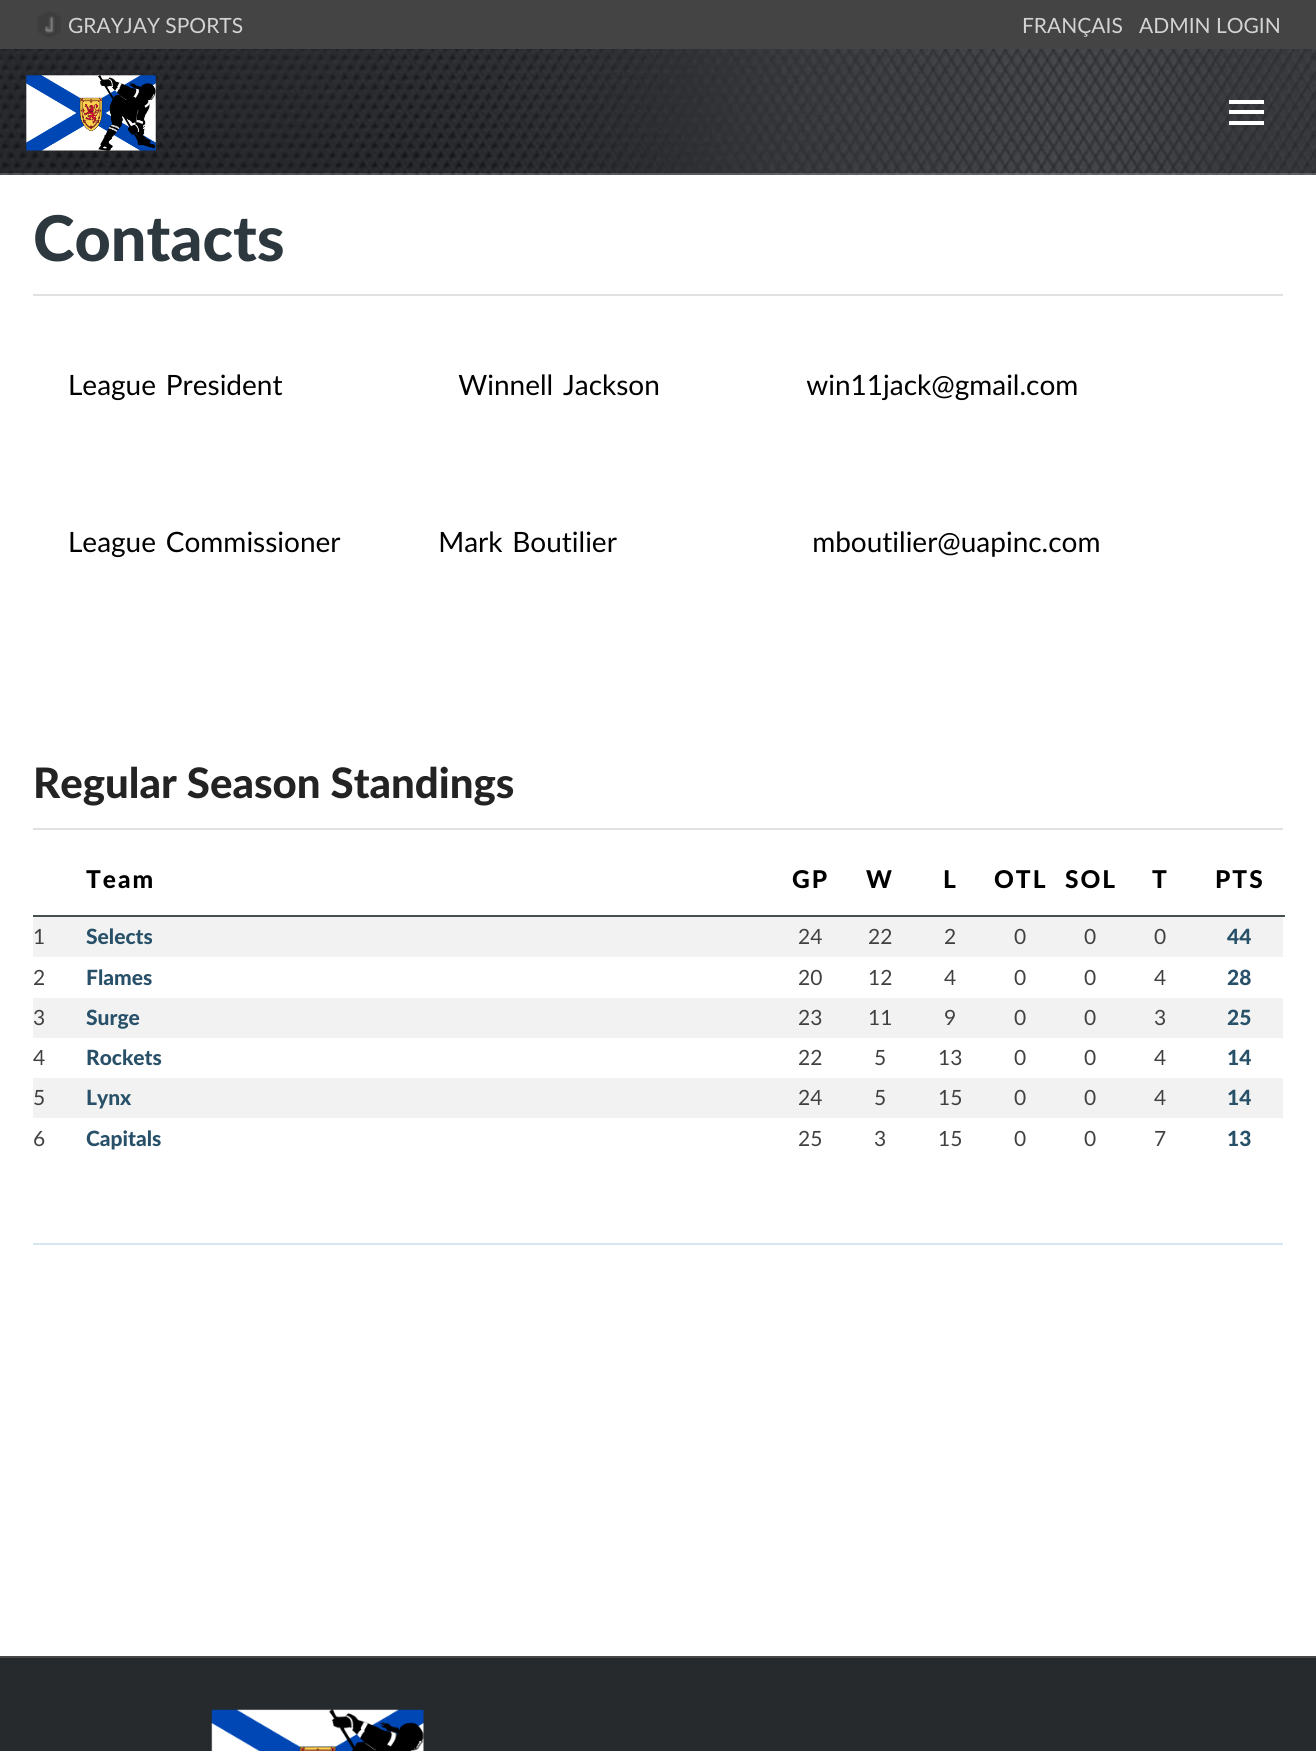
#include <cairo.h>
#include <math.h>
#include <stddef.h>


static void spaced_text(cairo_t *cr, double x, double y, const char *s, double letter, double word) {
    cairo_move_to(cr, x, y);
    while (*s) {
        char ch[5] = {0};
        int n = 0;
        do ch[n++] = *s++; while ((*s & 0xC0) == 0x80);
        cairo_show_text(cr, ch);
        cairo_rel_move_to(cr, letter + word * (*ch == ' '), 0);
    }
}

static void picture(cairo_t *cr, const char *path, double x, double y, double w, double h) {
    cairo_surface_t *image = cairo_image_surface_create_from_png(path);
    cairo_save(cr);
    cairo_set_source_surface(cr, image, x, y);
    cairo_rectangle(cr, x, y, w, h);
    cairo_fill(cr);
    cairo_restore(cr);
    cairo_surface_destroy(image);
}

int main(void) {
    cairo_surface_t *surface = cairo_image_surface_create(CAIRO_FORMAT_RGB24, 1316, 1751);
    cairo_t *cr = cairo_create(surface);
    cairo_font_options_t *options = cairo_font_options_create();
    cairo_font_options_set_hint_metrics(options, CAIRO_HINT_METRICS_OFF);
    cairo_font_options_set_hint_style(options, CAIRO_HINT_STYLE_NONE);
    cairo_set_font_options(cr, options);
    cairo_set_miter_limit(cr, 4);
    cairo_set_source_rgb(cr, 1, 1, 1);
    cairo_paint(cr);
    cairo_set_source_rgb(cr, 0.267, 0.267, 0.267);
    cairo_rectangle(cr, 0, 0, 1316, 49);
    cairo_fill(cr);
    picture(cr, "img1.png", 37, 11, 24, 27);
    cairo_select_font_face(cr, "Lato", CAIRO_FONT_SLANT_NORMAL, CAIRO_FONT_WEIGHT_NORMAL);
    cairo_set_font_size(cr, 21);
    cairo_set_source_rgb(cr, 0.824, 0.827, 0.827);
    cairo_move_to(cr, 68, 33);
    cairo_show_text(cr, "GRAYJAY SPORTS");
    cairo_move_to(cr, 1022, 33);
    cairo_show_text(cr, "FRANÇAIS");
    cairo_move_to(cr, 1139, 33);
    cairo_show_text(cr, "ADMIN LOGIN");
    picture(cr, "img2.png", 0, 49, 1316, 126);
    cairo_set_source_rgba(cr, 1, 1, 1, 0.2);
    cairo_rectangle(cr, 0, 173, 1316, 2);
    cairo_fill(cr);
    picture(cr, "img3.png", 26, 75, 130, 76);
    cairo_set_source_rgb(cr, 1, 1, 1);
    cairo_rectangle(cr, 1229, 100, 35, 4);
    cairo_fill(cr);
    cairo_rectangle(cr, 1229, 110, 35, 4);
    cairo_fill(cr);
    cairo_rectangle(cr, 1229, 121, 35, 4);
    cairo_fill(cr);
    cairo_select_font_face(cr, "Lato Black", CAIRO_FONT_SLANT_NORMAL, CAIRO_FONT_WEIGHT_NORMAL);
    cairo_set_font_size(cr, 63);
    cairo_set_source_rgb(cr, 0.173, 0.22, 0.243);
    cairo_move_to(cr, 33, 261);
    cairo_show_text(cr, "Contacts");
    cairo_set_source_rgb(cr, 0.882, 0.882, 0.882);
    cairo_rectangle(cr, 33, 294, 1250, 2);
    cairo_fill(cr);
    cairo_select_font_face(cr, "Lato", CAIRO_FONT_SLANT_NORMAL, CAIRO_FONT_WEIGHT_NORMAL);
    cairo_set_font_size(cr, 28);
    cairo_set_source_rgb(cr, 0, 0, 0);
    spaced_text(cr, 68, 395, "League President                  Winnell Jackson               win11jack@gmail.com", 0, 2.6);
    spaced_text(cr, 68, 552, "League Commissioner          Mark Boutilier                    mboutilier@uapinc.com", 0, 2.6);
    cairo_select_font_face(cr, "Lato Black", CAIRO_FONT_SLANT_NORMAL, CAIRO_FONT_WEIGHT_NORMAL);
    cairo_set_font_size(cr, 42);
    cairo_set_source_rgb(cr, 0.137, 0.137, 0.137);
    cairo_move_to(cr, 33, 798);
    cairo_show_text(cr, "Regular Season Standings");
    cairo_set_source_rgb(cr, 0.882, 0.882, 0.882);
    cairo_rectangle(cr, 33, 828, 1250, 2);
    cairo_fill(cr);
    cairo_set_font_size(cr, 24.5);
    cairo_set_source_rgb(cr, 0, 0, 0);
    spaced_text(cr, 86, 888, "Team", 2, 0);
    spaced_text(cr, 792, 888, "GP", 2, 0);
    spaced_text(cr, 866, 888, "W", 2, 0);
    spaced_text(cr, 943, 888, "L", 2, 0);
    spaced_text(cr, 994, 888, "OTL", 2, 0);
    spaced_text(cr, 1065, 888, "SOL", 2, 0);
    spaced_text(cr, 1152, 888, "T", 2, 0);
    cairo_set_source_rgb(cr, 0.278, 0.306, 0.31);
    cairo_rectangle(cr, 33, 915, 1252, 2);
    cairo_fill(cr);
    cairo_set_source_rgb(cr, 0, 0, 0);
    spaced_text(cr, 1215, 888, "PTS", 2, 0);
    cairo_set_source_rgb(cr, 0.949, 0.949, 0.949);
    cairo_rectangle(cr, 33, 917, 1250, 40);
    cairo_fill(cr);
    cairo_select_font_face(cr, "Lato", CAIRO_FONT_SLANT_NORMAL, CAIRO_FONT_WEIGHT_NORMAL);
    cairo_set_font_size(cr, 21);
    cairo_set_source_rgb(cr, 0.255, 0.255, 0.259);
    cairo_move_to(cr, 33, 944);
    cairo_show_text(cr, "1");
    cairo_select_font_face(cr, "Lato Black", CAIRO_FONT_SLANT_NORMAL, CAIRO_FONT_WEIGHT_NORMAL);
    cairo_set_source_rgb(cr, 0.157, 0.318, 0.412);
    cairo_move_to(cr, 86, 944);
    cairo_show_text(cr, "Selects");
    cairo_select_font_face(cr, "Lato", CAIRO_FONT_SLANT_NORMAL, CAIRO_FONT_WEIGHT_NORMAL);
    cairo_set_source_rgb(cr, 0.255, 0.255, 0.259);
    cairo_move_to(cr, 798, 944);
    cairo_show_text(cr, "24");
    cairo_move_to(cr, 868, 944);
    cairo_show_text(cr, "22");
    cairo_move_to(cr, 944, 944);
    cairo_show_text(cr, "2");
    cairo_move_to(cr, 1014, 944);
    cairo_show_text(cr, "0");
    cairo_move_to(cr, 1084, 944);
    cairo_show_text(cr, "0");
    cairo_move_to(cr, 1154, 944);
    cairo_show_text(cr, "0");
    cairo_select_font_face(cr, "Lato Black", CAIRO_FONT_SLANT_NORMAL, CAIRO_FONT_WEIGHT_NORMAL);
    cairo_set_source_rgb(cr, 0.157, 0.318, 0.412);
    cairo_move_to(cr, 1227, 944);
    cairo_show_text(cr, "44");
    cairo_select_font_face(cr, "Lato", CAIRO_FONT_SLANT_NORMAL, CAIRO_FONT_WEIGHT_NORMAL);
    cairo_set_source_rgb(cr, 0.255, 0.255, 0.259);
    cairo_move_to(cr, 33, 985);
    cairo_show_text(cr, "2");
    cairo_select_font_face(cr, "Lato Black", CAIRO_FONT_SLANT_NORMAL, CAIRO_FONT_WEIGHT_NORMAL);
    cairo_set_source_rgb(cr, 0.157, 0.318, 0.412);
    cairo_move_to(cr, 86, 985);
    cairo_show_text(cr, "Flames");
    cairo_select_font_face(cr, "Lato", CAIRO_FONT_SLANT_NORMAL, CAIRO_FONT_WEIGHT_NORMAL);
    cairo_set_source_rgb(cr, 0.255, 0.255, 0.259);
    cairo_move_to(cr, 798, 985);
    cairo_show_text(cr, "20");
    cairo_move_to(cr, 868, 985);
    cairo_show_text(cr, "12");
    cairo_move_to(cr, 944, 985);
    cairo_show_text(cr, "4");
    cairo_move_to(cr, 1014, 985);
    cairo_show_text(cr, "0");
    cairo_move_to(cr, 1084, 985);
    cairo_show_text(cr, "0");
    cairo_move_to(cr, 1154, 985);
    cairo_show_text(cr, "4");
    cairo_select_font_face(cr, "Lato Black", CAIRO_FONT_SLANT_NORMAL, CAIRO_FONT_WEIGHT_NORMAL);
    cairo_set_source_rgb(cr, 0.157, 0.318, 0.412);
    cairo_move_to(cr, 1227, 985);
    cairo_show_text(cr, "28");
    cairo_set_source_rgb(cr, 0.949, 0.949, 0.949);
    cairo_rectangle(cr, 33, 998, 1250, 40);
    cairo_fill(cr);
    cairo_select_font_face(cr, "Lato", CAIRO_FONT_SLANT_NORMAL, CAIRO_FONT_WEIGHT_NORMAL);
    cairo_set_source_rgb(cr, 0.255, 0.255, 0.259);
    cairo_move_to(cr, 33, 1025);
    cairo_show_text(cr, "3");
    cairo_select_font_face(cr, "Lato Black", CAIRO_FONT_SLANT_NORMAL, CAIRO_FONT_WEIGHT_NORMAL);
    cairo_set_source_rgb(cr, 0.157, 0.318, 0.412);
    cairo_move_to(cr, 86, 1025);
    cairo_show_text(cr, "Surge");
    cairo_select_font_face(cr, "Lato", CAIRO_FONT_SLANT_NORMAL, CAIRO_FONT_WEIGHT_NORMAL);
    cairo_set_source_rgb(cr, 0.255, 0.255, 0.259);
    cairo_move_to(cr, 798, 1025);
    cairo_show_text(cr, "23");
    cairo_move_to(cr, 868, 1025);
    cairo_show_text(cr, "11");
    cairo_move_to(cr, 944, 1025);
    cairo_show_text(cr, "9");
    cairo_move_to(cr, 1014, 1025);
    cairo_show_text(cr, "0");
    cairo_move_to(cr, 1084, 1025);
    cairo_show_text(cr, "0");
    cairo_move_to(cr, 1154, 1025);
    cairo_show_text(cr, "3");
    cairo_select_font_face(cr, "Lato Black", CAIRO_FONT_SLANT_NORMAL, CAIRO_FONT_WEIGHT_NORMAL);
    cairo_set_source_rgb(cr, 0.157, 0.318, 0.412);
    cairo_move_to(cr, 1227, 1025);
    cairo_show_text(cr, "25");
    cairo_select_font_face(cr, "Lato", CAIRO_FONT_SLANT_NORMAL, CAIRO_FONT_WEIGHT_NORMAL);
    cairo_set_source_rgb(cr, 0.255, 0.255, 0.259);
    cairo_move_to(cr, 33, 1065);
    cairo_show_text(cr, "4");
    cairo_select_font_face(cr, "Lato Black", CAIRO_FONT_SLANT_NORMAL, CAIRO_FONT_WEIGHT_NORMAL);
    cairo_set_source_rgb(cr, 0.157, 0.318, 0.412);
    cairo_move_to(cr, 86, 1065);
    cairo_show_text(cr, "Rockets");
    cairo_select_font_face(cr, "Lato", CAIRO_FONT_SLANT_NORMAL, CAIRO_FONT_WEIGHT_NORMAL);
    cairo_set_source_rgb(cr, 0.255, 0.255, 0.259);
    cairo_move_to(cr, 798, 1065);
    cairo_show_text(cr, "22");
    cairo_move_to(cr, 874, 1065);
    cairo_show_text(cr, "5");
    cairo_move_to(cr, 938, 1065);
    cairo_show_text(cr, "13");
    cairo_move_to(cr, 1014, 1065);
    cairo_show_text(cr, "0");
    cairo_move_to(cr, 1084, 1065);
    cairo_show_text(cr, "0");
    cairo_move_to(cr, 1154, 1065);
    cairo_show_text(cr, "4");
    cairo_select_font_face(cr, "Lato Black", CAIRO_FONT_SLANT_NORMAL, CAIRO_FONT_WEIGHT_NORMAL);
    cairo_set_source_rgb(cr, 0.157, 0.318, 0.412);
    cairo_move_to(cr, 1227, 1065);
    cairo_show_text(cr, "14");
    cairo_set_source_rgb(cr, 0.949, 0.949, 0.949);
    cairo_rectangle(cr, 33, 1078, 1250, 40);
    cairo_fill(cr);
    cairo_select_font_face(cr, "Lato", CAIRO_FONT_SLANT_NORMAL, CAIRO_FONT_WEIGHT_NORMAL);
    cairo_set_source_rgb(cr, 0.255, 0.255, 0.259);
    cairo_move_to(cr, 33, 1105);
    cairo_show_text(cr, "5");
    cairo_select_font_face(cr, "Lato Black", CAIRO_FONT_SLANT_NORMAL, CAIRO_FONT_WEIGHT_NORMAL);
    cairo_set_source_rgb(cr, 0.157, 0.318, 0.412);
    cairo_move_to(cr, 86, 1105);
    cairo_show_text(cr, "Lynx");
    cairo_select_font_face(cr, "Lato", CAIRO_FONT_SLANT_NORMAL, CAIRO_FONT_WEIGHT_NORMAL);
    cairo_set_source_rgb(cr, 0.255, 0.255, 0.259);
    cairo_move_to(cr, 798, 1105);
    cairo_show_text(cr, "24");
    cairo_move_to(cr, 874, 1105);
    cairo_show_text(cr, "5");
    cairo_move_to(cr, 938, 1105);
    cairo_show_text(cr, "15");
    cairo_move_to(cr, 1014, 1105);
    cairo_show_text(cr, "0");
    cairo_move_to(cr, 1084, 1105);
    cairo_show_text(cr, "0");
    cairo_move_to(cr, 1154, 1105);
    cairo_show_text(cr, "4");
    cairo_select_font_face(cr, "Lato Black", CAIRO_FONT_SLANT_NORMAL, CAIRO_FONT_WEIGHT_NORMAL);
    cairo_set_source_rgb(cr, 0.157, 0.318, 0.412);
    cairo_move_to(cr, 1227, 1105);
    cairo_show_text(cr, "14");
    cairo_select_font_face(cr, "Lato", CAIRO_FONT_SLANT_NORMAL, CAIRO_FONT_WEIGHT_NORMAL);
    cairo_set_source_rgb(cr, 0.255, 0.255, 0.259);
    cairo_move_to(cr, 33, 1146);
    cairo_show_text(cr, "6");
    cairo_select_font_face(cr, "Lato Black", CAIRO_FONT_SLANT_NORMAL, CAIRO_FONT_WEIGHT_NORMAL);
    cairo_set_source_rgb(cr, 0.157, 0.318, 0.412);
    cairo_move_to(cr, 86, 1146);
    cairo_show_text(cr, "Capitals");
    cairo_select_font_face(cr, "Lato", CAIRO_FONT_SLANT_NORMAL, CAIRO_FONT_WEIGHT_NORMAL);
    cairo_set_source_rgb(cr, 0.255, 0.255, 0.259);
    cairo_move_to(cr, 798, 1146);
    cairo_show_text(cr, "25");
    cairo_move_to(cr, 874, 1146);
    cairo_show_text(cr, "3");
    cairo_move_to(cr, 938, 1146);
    cairo_show_text(cr, "15");
    cairo_move_to(cr, 1014, 1146);
    cairo_show_text(cr, "0");
    cairo_move_to(cr, 1084, 1146);
    cairo_show_text(cr, "0");
    cairo_move_to(cr, 1154, 1146);
    cairo_show_text(cr, "7");
    cairo_select_font_face(cr, "Lato Black", CAIRO_FONT_SLANT_NORMAL, CAIRO_FONT_WEIGHT_NORMAL);
    cairo_set_source_rgb(cr, 0.157, 0.318, 0.412);
    cairo_move_to(cr, 1227, 1146);
    cairo_show_text(cr, "13");
    cairo_set_source_rgb(cr, 0.843, 0.902, 0.933);
    cairo_rectangle(cr, 33, 1243, 1250, 2);
    cairo_fill(cr);
    cairo_set_source_rgb(cr, 0.149, 0.165, 0.176);
    cairo_rectangle(cr, 0, 1658, 1316, 93);
    cairo_fill(cr);
    cairo_set_source_rgb(cr, 0.278, 0.278, 0.278);
    cairo_rectangle(cr, 0, 1656, 1316, 2);
    cairo_fill(cr);
    picture(cr, "img4.png", 211, 1709, 213, 42);
    cairo_surface_write_to_png(surface, "page.png");
    cairo_font_options_destroy(options);
    cairo_destroy(cr);
    cairo_surface_destroy(surface);
    return 0;
}
